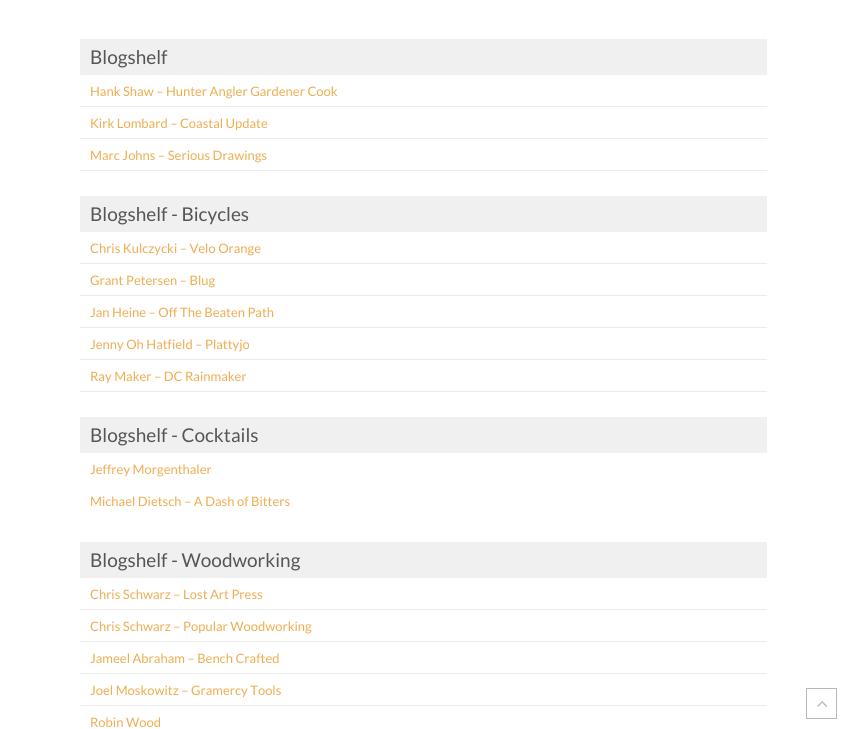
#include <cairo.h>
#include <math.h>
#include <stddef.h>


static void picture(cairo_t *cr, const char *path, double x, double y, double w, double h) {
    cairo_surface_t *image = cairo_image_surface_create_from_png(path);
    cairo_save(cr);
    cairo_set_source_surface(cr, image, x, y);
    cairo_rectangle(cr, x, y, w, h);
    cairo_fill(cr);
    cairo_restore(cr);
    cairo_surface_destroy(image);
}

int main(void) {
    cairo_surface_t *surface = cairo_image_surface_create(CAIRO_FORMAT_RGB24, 847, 729);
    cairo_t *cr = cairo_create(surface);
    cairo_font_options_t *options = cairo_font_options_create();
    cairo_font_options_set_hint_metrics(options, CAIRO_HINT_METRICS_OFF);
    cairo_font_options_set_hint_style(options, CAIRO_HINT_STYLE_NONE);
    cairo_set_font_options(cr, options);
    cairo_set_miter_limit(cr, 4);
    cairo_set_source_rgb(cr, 1, 1, 1);
    cairo_paint(cr);
    cairo_set_source_rgb(cr, 0.941, 0.941, 0.941);
    cairo_rectangle(cr, 80, 39, 687, 36);
    cairo_fill(cr);
    cairo_select_font_face(cr, "Lato", CAIRO_FONT_SLANT_NORMAL, CAIRO_FONT_WEIGHT_NORMAL);
    cairo_set_font_size(cr, 19);
    cairo_set_source_rgb(cr, 0.333, 0.333, 0.333);
    cairo_move_to(cr, 90, 64);
    cairo_show_text(cr, "Blogshelf");
    picture(cr, "img1.png", 80, 106, 687, 65);
    cairo_set_font_size(cr, 13);
    cairo_set_source_rgb(cr, 0.933, 0.678, 0.318);
    cairo_move_to(cr, 90, 96);
    cairo_show_text(cr, "Hank Shaw – Hunter Angler Gardener Cook");
    cairo_move_to(cr, 90, 128);
    cairo_show_text(cr, "Kirk Lombard – Coastal Update");
    cairo_move_to(cr, 90, 160);
    cairo_show_text(cr, "Marc Johns – Serious Drawings");
    cairo_set_source_rgb(cr, 0.941, 0.941, 0.941);
    cairo_rectangle(cr, 80, 196, 687, 36);
    cairo_fill(cr);
    cairo_set_font_size(cr, 19);
    cairo_set_source_rgb(cr, 0.333, 0.333, 0.333);
    cairo_move_to(cr, 90, 221);
    cairo_show_text(cr, "Blogshelf - Bicycles");
    picture(cr, "img2.png", 80, 263, 687, 129);
    cairo_set_font_size(cr, 13);
    cairo_set_source_rgb(cr, 0.933, 0.678, 0.318);
    cairo_move_to(cr, 90, 253);
    cairo_show_text(cr, "Chris Kulczycki – Velo Orange");
    cairo_move_to(cr, 90, 285);
    cairo_show_text(cr, "Grant Petersen – Blug");
    cairo_move_to(cr, 90, 317);
    cairo_show_text(cr, "Jan Heine – Off The Beaten Path");
    cairo_move_to(cr, 90, 349);
    cairo_show_text(cr, "Jenny Oh Hatfield – Plattyjo");
    cairo_move_to(cr, 90, 381);
    cairo_show_text(cr, "Ray Maker – DC Rainmaker");
    cairo_set_source_rgb(cr, 0.941, 0.941, 0.941);
    cairo_rectangle(cr, 80, 417, 687, 36);
    cairo_fill(cr);
    cairo_set_font_size(cr, 19);
    cairo_set_source_rgb(cr, 0.333, 0.333, 0.333);
    cairo_move_to(cr, 90, 442);
    cairo_show_text(cr, "Blogshelf - Cocktails");
    cairo_set_font_size(cr, 13);
    cairo_set_source_rgb(cr, 0.933, 0.678, 0.318);
    cairo_move_to(cr, 90, 474);
    cairo_show_text(cr, "Jeffrey Morgenthaler");
    cairo_move_to(cr, 90, 506);
    cairo_show_text(cr, "Michael Dietsch – A Dash of Bitters");
    cairo_set_source_rgb(cr, 0.941, 0.941, 0.941);
    cairo_rectangle(cr, 80, 542, 687, 36);
    cairo_fill(cr);
    cairo_set_font_size(cr, 19);
    cairo_set_source_rgb(cr, 0.333, 0.333, 0.333);
    cairo_move_to(cr, 90, 567);
    cairo_show_text(cr, "Blogshelf - Woodworking");
    picture(cr, "img3.png", 80, 609, 687, 97);
    cairo_set_font_size(cr, 13);
    cairo_set_source_rgb(cr, 0.933, 0.678, 0.318);
    cairo_move_to(cr, 90, 599);
    cairo_show_text(cr, "Chris Schwarz – Lost Art Press");
    cairo_move_to(cr, 90, 631);
    cairo_show_text(cr, "Chris Schwarz – Popular Woodworking");
    cairo_move_to(cr, 90, 663);
    cairo_show_text(cr, "Jameel Abraham – Bench Crafted");
    cairo_move_to(cr, 90, 695);
    cairo_show_text(cr, "Joel Moskowitz – Gramercy Tools");
    cairo_move_to(cr, 90, 727);
    cairo_show_text(cr, "Robin Wood");
    cairo_rectangle(cr, 806.5, 688.5, 30, 30);
    cairo_set_source_rgb(cr, 0.722, 0.722, 0.722);
    cairo_set_line_width(cr, 1);
    cairo_stroke(cr);
    picture(cr, "img4.png", 817, 701, 10, 6);
    cairo_surface_write_to_png(surface, "page.png");
    cairo_font_options_destroy(options);
    cairo_destroy(cr);
    cairo_surface_destroy(surface);
    return 0;
}
